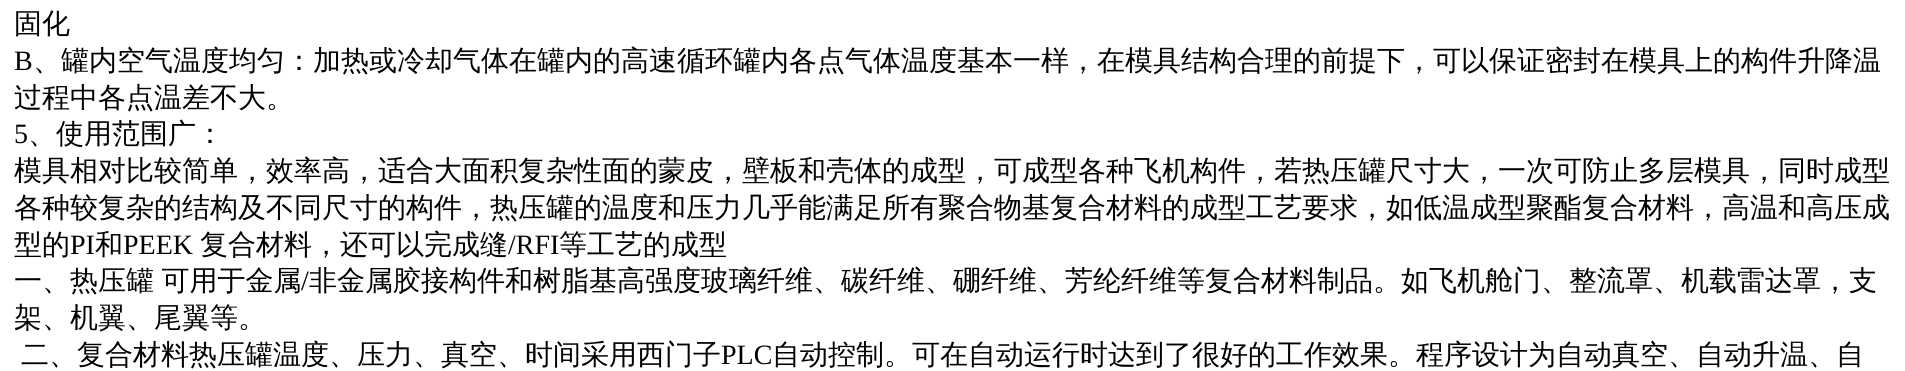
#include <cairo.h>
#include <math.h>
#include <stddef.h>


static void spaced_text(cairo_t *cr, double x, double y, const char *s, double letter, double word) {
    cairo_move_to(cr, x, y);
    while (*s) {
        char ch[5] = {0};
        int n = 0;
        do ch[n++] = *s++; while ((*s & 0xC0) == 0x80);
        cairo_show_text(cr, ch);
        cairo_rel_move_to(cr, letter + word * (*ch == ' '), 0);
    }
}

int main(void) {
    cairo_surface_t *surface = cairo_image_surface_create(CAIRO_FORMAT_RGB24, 1905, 371);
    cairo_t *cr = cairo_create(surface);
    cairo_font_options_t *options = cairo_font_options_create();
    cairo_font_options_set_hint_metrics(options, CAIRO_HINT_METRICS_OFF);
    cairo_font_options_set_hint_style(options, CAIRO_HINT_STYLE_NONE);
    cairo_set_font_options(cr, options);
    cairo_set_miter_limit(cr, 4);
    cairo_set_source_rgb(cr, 1, 1, 1);
    cairo_paint(cr);
    cairo_select_font_face(cr, "WenQuanYi Zen Hei Medium", CAIRO_FONT_SLANT_NORMAL, CAIRO_FONT_WEIGHT_NORMAL);
    cairo_set_font_size(cr, 28);
    cairo_set_source_rgb(cr, 0, 0, 0);
    cairo_move_to(cr, 14, 33);
    cairo_show_text(cr, "固化");
    cairo_select_font_face(cr, "Liberation Serif", CAIRO_FONT_SLANT_NORMAL, CAIRO_FONT_WEIGHT_NORMAL);
    cairo_move_to(cr, 14, 70);
    cairo_show_text(cr, "B");
    cairo_select_font_face(cr, "WenQuanYi Zen Hei Medium", CAIRO_FONT_SLANT_NORMAL, CAIRO_FONT_WEIGHT_NORMAL);
    cairo_move_to(cr, 33, 70);
    cairo_show_text(cr, "、罐内空气温度均匀：加热或冷却气体在罐内的高速循环罐内各点气体温度基本一样，在模具结构合理的前提下，可以保证密封在模具上的构件升降温");
    cairo_move_to(cr, 14, 107);
    cairo_show_text(cr, "过程中各点温差不大。");
    cairo_select_font_face(cr, "Liberation Serif", CAIRO_FONT_SLANT_NORMAL, CAIRO_FONT_WEIGHT_NORMAL);
    cairo_move_to(cr, 14, 143);
    cairo_show_text(cr, "5");
    cairo_select_font_face(cr, "WenQuanYi Zen Hei Medium", CAIRO_FONT_SLANT_NORMAL, CAIRO_FONT_WEIGHT_NORMAL);
    cairo_move_to(cr, 28, 143);
    cairo_show_text(cr, "、使用范围广：");
    cairo_move_to(cr, 14, 180);
    cairo_show_text(cr, "模具相对比较简单，效率高，适合大面积复杂性面的蒙皮，壁板和壳体的成型，可成型各种飞机构件，若热压罐尺寸大，一次可防止多层模具，同时成型");
    cairo_move_to(cr, 14, 217);
    cairo_show_text(cr, "各种较复杂的结构及不同尺寸的构件，热压罐的温度和压力几乎能满足所有聚合物基复合材料的成型工艺要求，如低温成型聚酯复合材料，高温和高压成");
    cairo_move_to(cr, 14, 254);
    cairo_show_text(cr, "型的");
    cairo_select_font_face(cr, "Liberation Serif", CAIRO_FONT_SLANT_NORMAL, CAIRO_FONT_WEIGHT_NORMAL);
    cairo_move_to(cr, 70, 254);
    cairo_show_text(cr, "PI");
    cairo_select_font_face(cr, "WenQuanYi Zen Hei Medium", CAIRO_FONT_SLANT_NORMAL, CAIRO_FONT_WEIGHT_NORMAL);
    cairo_move_to(cr, 95, 254);
    cairo_show_text(cr, "和");
    cairo_select_font_face(cr, "Liberation Serif", CAIRO_FONT_SLANT_NORMAL, CAIRO_FONT_WEIGHT_NORMAL);
    cairo_move_to(cr, 123, 254);
    cairo_show_text(cr, "PEEK");
    cairo_select_font_face(cr, "WenQuanYi Zen Hei Medium", CAIRO_FONT_SLANT_NORMAL, CAIRO_FONT_WEIGHT_NORMAL);
    cairo_move_to(cr, 200, 254);
    cairo_show_text(cr, "复合材料，还可以完成缝");
    cairo_select_font_face(cr, "Liberation Serif", CAIRO_FONT_SLANT_NORMAL, CAIRO_FONT_WEIGHT_NORMAL);
    cairo_move_to(cr, 508, 254);
    cairo_show_text(cr, "/RFI");
    cairo_select_font_face(cr, "WenQuanYi Zen Hei Medium", CAIRO_FONT_SLANT_NORMAL, CAIRO_FONT_WEIGHT_NORMAL);
    cairo_move_to(cr, 559, 254);
    cairo_show_text(cr, "等工艺的成型");
    spaced_text(cr, 14, 290, "一、热压罐 可用于金属", 0, -1);
    cairo_select_font_face(cr, "Liberation Serif", CAIRO_FONT_SLANT_NORMAL, CAIRO_FONT_WEIGHT_NORMAL);
    cairo_move_to(cr, 301, 290);
    cairo_show_text(cr, "/");
    cairo_select_font_face(cr, "WenQuanYi Zen Hei Medium", CAIRO_FONT_SLANT_NORMAL, CAIRO_FONT_WEIGHT_NORMAL);
    cairo_move_to(cr, 309, 290);
    cairo_show_text(cr, "非金属胶接构件和树脂基高强度玻璃纤维、碳纤维、硼纤维、芳纶纤维等复合材料制品。如飞机舱门、整流罩、机载雷达罩，支");
    cairo_move_to(cr, 14, 327);
    cairo_show_text(cr, "架、机翼、尾翼等。");
    cairo_move_to(cr, 21, 364);
    cairo_show_text(cr, "二、复合材料热压罐温度、压力、真空、时间采用西门子");
    cairo_select_font_face(cr, "Liberation Serif", CAIRO_FONT_SLANT_NORMAL, CAIRO_FONT_WEIGHT_NORMAL);
    cairo_move_to(cr, 721, 364);
    cairo_show_text(cr, "PLC");
    cairo_select_font_face(cr, "WenQuanYi Zen Hei Medium", CAIRO_FONT_SLANT_NORMAL, CAIRO_FONT_WEIGHT_NORMAL);
    cairo_move_to(cr, 772, 364);
    cairo_show_text(cr, "自动控制。可在自动运行时达到了很好的工作效果。程序设计为自动真空、自动升温、自");
    cairo_surface_write_to_png(surface, "page.png");
    cairo_font_options_destroy(options);
    cairo_destroy(cr);
    cairo_surface_destroy(surface);
    return 0;
}
